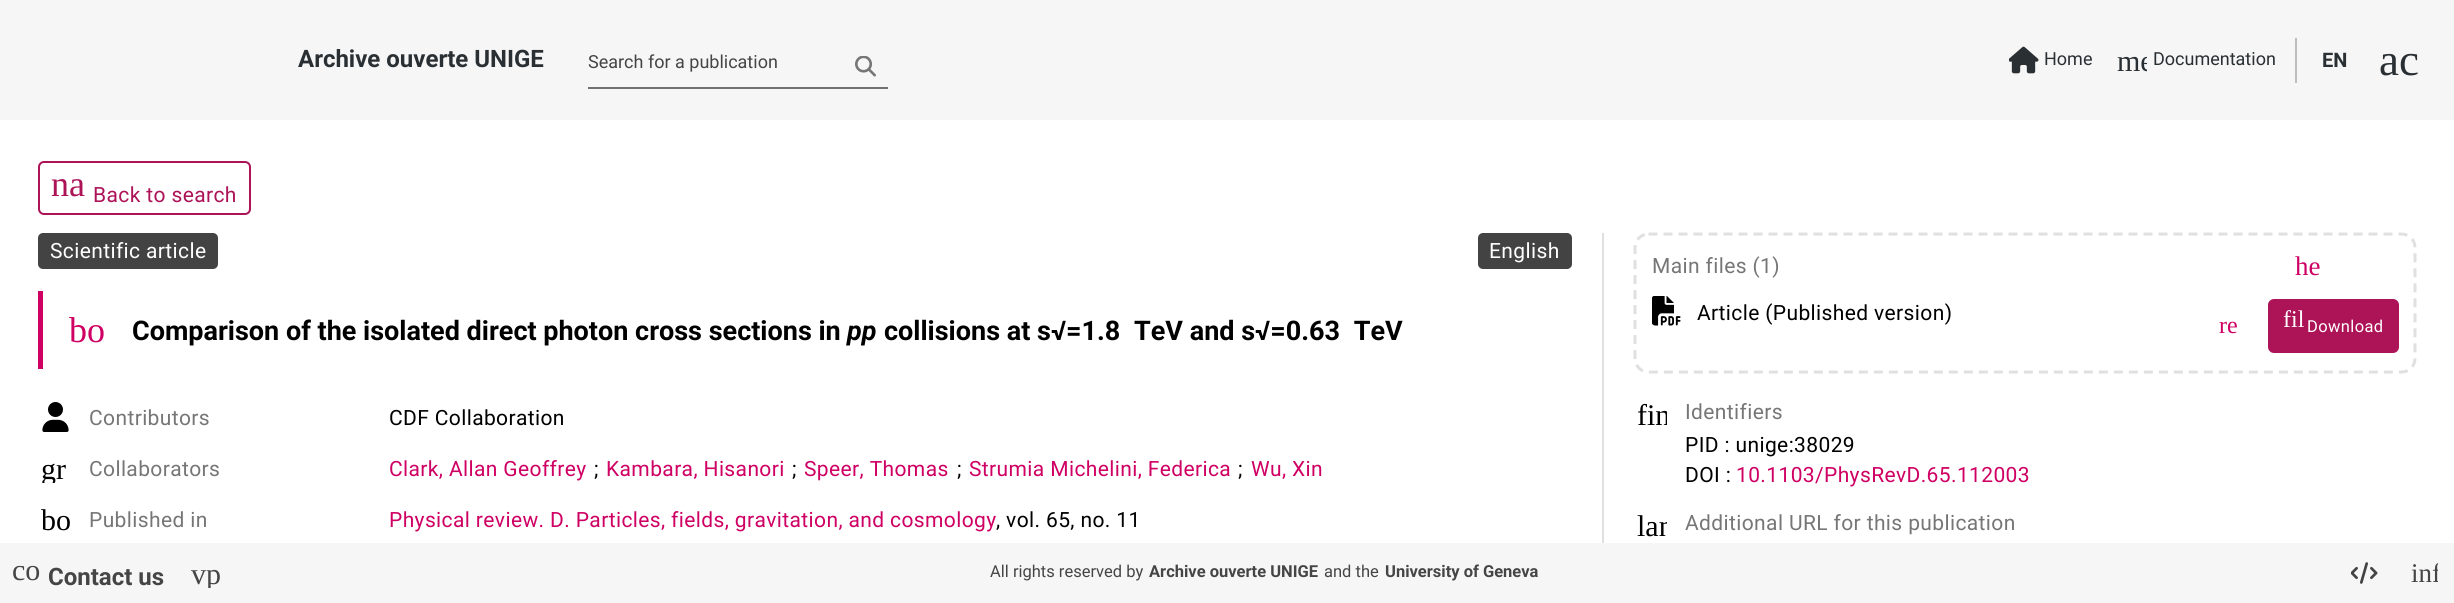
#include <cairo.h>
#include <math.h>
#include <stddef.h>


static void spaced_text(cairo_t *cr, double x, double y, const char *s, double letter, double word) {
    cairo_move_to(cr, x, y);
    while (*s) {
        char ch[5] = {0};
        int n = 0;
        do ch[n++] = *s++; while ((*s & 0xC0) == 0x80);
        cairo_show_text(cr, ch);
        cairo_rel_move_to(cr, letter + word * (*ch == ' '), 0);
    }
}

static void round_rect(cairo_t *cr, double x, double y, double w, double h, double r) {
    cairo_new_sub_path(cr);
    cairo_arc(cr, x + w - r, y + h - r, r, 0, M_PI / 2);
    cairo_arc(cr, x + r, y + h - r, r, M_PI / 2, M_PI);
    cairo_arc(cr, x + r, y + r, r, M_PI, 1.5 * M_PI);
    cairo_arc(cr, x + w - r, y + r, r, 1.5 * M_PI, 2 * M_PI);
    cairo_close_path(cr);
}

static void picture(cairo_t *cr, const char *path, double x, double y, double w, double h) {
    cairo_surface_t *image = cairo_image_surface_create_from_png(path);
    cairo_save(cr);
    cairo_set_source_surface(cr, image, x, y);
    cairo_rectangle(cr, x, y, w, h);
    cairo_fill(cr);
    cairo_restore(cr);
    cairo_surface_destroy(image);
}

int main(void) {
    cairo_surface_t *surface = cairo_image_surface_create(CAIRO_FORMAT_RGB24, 2454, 603);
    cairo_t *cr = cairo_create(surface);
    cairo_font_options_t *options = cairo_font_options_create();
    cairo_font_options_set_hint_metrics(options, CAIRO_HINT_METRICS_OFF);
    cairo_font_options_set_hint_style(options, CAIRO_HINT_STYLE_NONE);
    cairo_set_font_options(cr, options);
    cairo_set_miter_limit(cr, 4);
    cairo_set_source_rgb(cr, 1, 1, 1);
    cairo_paint(cr);
    cairo_set_source_rgb(cr, 0.961, 0.961, 0.961);
    cairo_rectangle(cr, 0, 0, 2454, 120);
    cairo_fill(cr);
    cairo_select_font_face(cr, "Roboto", CAIRO_FONT_SLANT_NORMAL, CAIRO_FONT_WEIGHT_BOLD);
    cairo_set_font_size(cr, 24);
    cairo_set_source_rgb(cr, 0.161, 0.184, 0.2);
    cairo_move_to(cr, 298, 67);
    cairo_show_text(cr, "Archive ouverte UNIGE");
    cairo_select_font_face(cr, "Roboto", CAIRO_FONT_SLANT_NORMAL, CAIRO_FONT_WEIGHT_NORMAL);
    cairo_set_font_size(cr, 18);
    cairo_set_source_rgb(cr, 0.271, 0.271, 0.271);
    cairo_move_to(cr, 588, 68);
    cairo_show_text(cr, "Search for a publication");
    picture(cr, "img1.png", 855, 56, 21, 21);
    cairo_set_source_rgb(cr, 0.443, 0.443, 0.443);
    cairo_rectangle(cr, 588, 87, 300, 2);
    cairo_fill(cr);
    picture(cr, "img2.png", 2009, 46, 30, 28);
    cairo_set_source_rgb(cr, 0.161, 0.184, 0.2);
    cairo_move_to(cr, 2044, 65);
    cairo_show_text(cr, "Home");
    cairo_save(cr);
    cairo_rectangle(cr, 2117, 45, 30, 30);
    cairo_clip(cr);
    cairo_select_font_face(cr, "Liberation Serif", CAIRO_FONT_SLANT_NORMAL, CAIRO_FONT_WEIGHT_NORMAL);
    cairo_set_font_size(cr, 30);
    cairo_move_to(cr, 2117, 71);
    cairo_show_text(cr, "me");
    cairo_restore(cr);
    cairo_move_to(cr, 2153, 65);
    cairo_show_text(cr, "Documentation");
    cairo_set_source_rgb(cr, 0.741, 0.741, 0.741);
    cairo_rectangle(cr, 2295, 38, 2, 45);
    cairo_fill(cr);
    cairo_select_font_face(cr, "Roboto", CAIRO_FONT_SLANT_NORMAL, CAIRO_FONT_WEIGHT_BOLD);
    cairo_set_font_size(cr, 20);
    cairo_set_source_rgb(cr, 0.161, 0.184, 0.2);
    cairo_move_to(cr, 2322, 67);
    cairo_show_text(cr, "EN");
    cairo_select_font_face(cr, "Liberation Serif", CAIRO_FONT_SLANT_NORMAL, CAIRO_FONT_WEIGHT_NORMAL);
    cairo_set_font_size(cr, 45);
    cairo_move_to(cr, 2379, 75);
    cairo_show_text(cr, "ac");
    round_rect(cr, 39, 162, 211, 52, 5);
    cairo_set_source_rgb(cr, 0.678, 0.078, 0.341);
    cairo_stroke(cr);
    cairo_set_font_size(cr, 36);
    cairo_move_to(cr, 51, 196);
    cairo_show_text(cr, "na");
    cairo_select_font_face(cr, "Roboto", CAIRO_FONT_SLANT_NORMAL, CAIRO_FONT_WEIGHT_NORMAL);
    cairo_set_font_size(cr, 21);
    spaced_text(cr, 93, 202, "Back to search", 0.38, 0);
    cairo_set_source_rgb(cr, 0.878, 0.878, 0.878);
    cairo_rectangle(cr, 1602, 233, 2, 310);
    cairo_fill(cr);
    cairo_set_source_rgb(cr, 0.263, 0.263, 0.263);
    round_rect(cr, 38, 233, 180, 36, 5);
    cairo_fill(cr);
    cairo_set_source_rgb(cr, 1, 1, 1);
    spaced_text(cr, 50, 258, "Scientific article", 0.38, 0);
    cairo_set_source_rgb(cr, 0.263, 0.263, 0.263);
    round_rect(cr, 1478, 233, 94, 36, 5);
    cairo_fill(cr);
    cairo_set_source_rgb(cr, 1, 1, 1);
    spaced_text(cr, 1489, 258, "English", 0.38, 0);
    cairo_set_source_rgb(cr, 0.812, 0, 0.388);
    cairo_rectangle(cr, 38, 291, 5, 78);
    cairo_fill(cr);
    cairo_select_font_face(cr, "Liberation Serif", CAIRO_FONT_SLANT_NORMAL, CAIRO_FONT_WEIGHT_NORMAL);
    cairo_set_font_size(cr, 36);
    cairo_move_to(cr, 69, 342);
    cairo_show_text(cr, "bo");
    cairo_select_font_face(cr, "Roboto", CAIRO_FONT_SLANT_NORMAL, CAIRO_FONT_WEIGHT_BOLD);
    cairo_set_font_size(cr, 27);
    cairo_set_source_rgb(cr, 0, 0, 0);
    cairo_move_to(cr, 132, 340);
    cairo_show_text(cr, "Comparison of the isolated direct photon cross sections in");
    cairo_select_font_face(cr, "Roboto", CAIRO_FONT_SLANT_ITALIC, CAIRO_FONT_WEIGHT_BOLD);
    cairo_move_to(cr, 847, 340);
    cairo_show_text(cr, "pp");
    cairo_select_font_face(cr, "Roboto", CAIRO_FONT_SLANT_NORMAL, CAIRO_FONT_WEIGHT_BOLD);
    cairo_move_to(cr, 884, 340);
    cairo_show_text(cr, "collisions at s√=1.8 TeV and s√=0.63 TeV");
    picture(cr, "img3.png", 42, 402, 27, 30);
    cairo_select_font_face(cr, "Roboto", CAIRO_FONT_SLANT_NORMAL, CAIRO_FONT_WEIGHT_NORMAL);
    cairo_set_font_size(cr, 21);
    cairo_set_source_rgb(cr, 0.463, 0.463, 0.463);
    spaced_text(cr, 89, 425, "Contributors", 0.38, 0);
    cairo_set_source_rgb(cr, 0, 0, 0);
    spaced_text(cr, 389, 425, "CDF Collaboration", 0.38, 0);
    cairo_save(cr);
    cairo_rectangle(cr, 41, 453, 30, 30);
    cairo_clip(cr);
    cairo_select_font_face(cr, "Liberation Serif", CAIRO_FONT_SLANT_NORMAL, CAIRO_FONT_WEIGHT_NORMAL);
    cairo_set_font_size(cr, 30);
    cairo_move_to(cr, 41, 479);
    cairo_show_text(cr, "gr");
    cairo_restore(cr);
    cairo_set_source_rgb(cr, 0.463, 0.463, 0.463);
    spaced_text(cr, 89, 476, "Collaborators", 0.38, 0);
    cairo_set_source_rgb(cr, 0.812, 0, 0.388);
    spaced_text(cr, 389, 476, "Clark, Allan Geoffrey", 0.38, 0);
    cairo_set_source_rgb(cr, 0, 0, 0);
    spaced_text(cr, 594, 476, ";", 0.38, 0);
    cairo_set_source_rgb(cr, 0.812, 0, 0.388);
    spaced_text(cr, 606, 476, "Kambara, Hisanori", 0.38, 0);
    cairo_set_source_rgb(cr, 0, 0, 0);
    spaced_text(cr, 792, 476, ";", 0.38, 0);
    cairo_set_source_rgb(cr, 0.812, 0, 0.388);
    spaced_text(cr, 804, 476, "Speer, Thomas", 0.38, 0);
    cairo_set_source_rgb(cr, 0, 0, 0);
    spaced_text(cr, 957, 476, ";", 0.38, 0);
    cairo_set_source_rgb(cr, 0.812, 0, 0.388);
    spaced_text(cr, 969, 476, "Strumia Michelini, Federica", 0.38, 0);
    cairo_set_source_rgb(cr, 0, 0, 0);
    spaced_text(cr, 1238, 476, ";", 0.38, 0);
    cairo_set_source_rgb(cr, 0.812, 0, 0.388);
    spaced_text(cr, 1251, 476, "Wu, Xin", 0.38, 0);
    cairo_select_font_face(cr, "Liberation Serif", CAIRO_FONT_SLANT_NORMAL, CAIRO_FONT_WEIGHT_NORMAL);
    cairo_set_font_size(cr, 30);
    cairo_set_source_rgb(cr, 0, 0, 0);
    cairo_move_to(cr, 41, 530);
    cairo_show_text(cr, "bo");
    cairo_select_font_face(cr, "Roboto", CAIRO_FONT_SLANT_NORMAL, CAIRO_FONT_WEIGHT_NORMAL);
    cairo_set_font_size(cr, 21);
    cairo_set_source_rgb(cr, 0.463, 0.463, 0.463);
    spaced_text(cr, 89, 527, "Published in", 0.38, 0);
    cairo_set_source_rgb(cr, 0.812, 0, 0.388);
    spaced_text(cr, 389, 527, "Physical review. D. Particles, fields, gravitation, and cosmology", 0.38, 0);
    cairo_set_source_rgb(cr, 0, 0, 0);
    spaced_text(cr, 996, 527, ", vol. 65, no. 11", 0.38, 0);
    cairo_new_path(cr);
    cairo_move_to(cr, 1648.5, 234);
    cairo_line_to(cr, 2401.5, 234);
    cairo_curve_to(cr, 2409, 234, 2415, 240, 2415, 247.5);
    cairo_line_to(cr, 2415, 358.5);
    cairo_curve_to(cr, 2415, 366, 2409, 372, 2401.5, 372);
    cairo_line_to(cr, 1648.5, 372);
    cairo_curve_to(cr, 1641, 372, 1635, 366, 1635, 358.5);
    cairo_line_to(cr, 1635, 247.5);
    cairo_curve_to(cr, 1635, 240, 1641, 234, 1648.5, 234);
    cairo_close_path(cr);
    cairo_set_source_rgb(cr, 0.878, 0.878, 0.878);
    cairo_set_line_width(cr, 3);
    cairo_set_dash(cr, (double[]){9, 6}, 2, 0);
    cairo_stroke(cr);
    cairo_set_source_rgb(cr, 0.463, 0.463, 0.463);
    spaced_text(cr, 1652, 273, "Main files (1)", 0.38, 0);
    cairo_select_font_face(cr, "Liberation Serif", CAIRO_FONT_SLANT_NORMAL, CAIRO_FONT_WEIGHT_NORMAL);
    cairo_set_font_size(cr, 27);
    cairo_set_source_rgb(cr, 0.812, 0, 0.388);
    cairo_move_to(cr, 2295, 275);
    cairo_show_text(cr, "he");
    picture(cr, "img4.png", 1652, 296, 29, 30);
    cairo_select_font_face(cr, "Roboto", CAIRO_FONT_SLANT_NORMAL, CAIRO_FONT_WEIGHT_NORMAL);
    cairo_set_font_size(cr, 21);
    cairo_set_source_rgb(cr, 0, 0, 0);
    spaced_text(cr, 1697, 320, "Article (Published version)", 0.38, 0);
    cairo_select_font_face(cr, "Liberation Serif", CAIRO_FONT_SLANT_NORMAL, CAIRO_FONT_WEIGHT_NORMAL);
    cairo_set_font_size(cr, 24);
    cairo_set_source_rgb(cr, 0.812, 0, 0.388);
    cairo_move_to(cr, 2219, 333);
    cairo_show_text(cr, "re");
    cairo_set_source_rgb(cr, 0.678, 0.078, 0.341);
    round_rect(cr, 2268, 299, 131, 54, 6);
    cairo_fill(cr);
    cairo_set_source_rgb(cr, 1, 1, 1);
    cairo_move_to(cr, 2283, 327);
    cairo_show_text(cr, "fil");
    cairo_select_font_face(cr, "Roboto", CAIRO_FONT_SLANT_NORMAL, CAIRO_FONT_WEIGHT_NORMAL);
    cairo_set_font_size(cr, 16.5);
    spaced_text(cr, 2307, 332, "Download", 0.38, 0);
    cairo_save(cr);
    cairo_rectangle(cr, 1637, 399, 30, 30);
    cairo_clip(cr);
    cairo_select_font_face(cr, "Liberation Serif", CAIRO_FONT_SLANT_NORMAL, CAIRO_FONT_WEIGHT_NORMAL);
    cairo_set_font_size(cr, 30);
    cairo_set_source_rgb(cr, 0, 0, 0);
    cairo_move_to(cr, 1637, 425);
    cairo_show_text(cr, "fin");
    cairo_restore(cr);
    cairo_set_font_size(cr, 21);
    cairo_set_source_rgb(cr, 0.463, 0.463, 0.463);
    spaced_text(cr, 1685, 419, "Identifiers", 0.38, 0);
    cairo_set_source_rgb(cr, 0, 0, 0);
    spaced_text(cr, 1685, 452, "PID : unige:38029", 0.38, 0);
    spaced_text(cr, 1685, 482, "DOI :", 0.38, 0);
    cairo_set_source_rgb(cr, 0.812, 0, 0.388);
    spaced_text(cr, 1736, 482, "10.1103/PhysRevD.65.112003", 0.38, 0);
    cairo_save(cr);
    cairo_rectangle(cr, 1637, 510, 30, 30);
    cairo_clip(cr);
    cairo_select_font_face(cr, "Liberation Serif", CAIRO_FONT_SLANT_NORMAL, CAIRO_FONT_WEIGHT_NORMAL);
    cairo_set_font_size(cr, 30);
    cairo_set_source_rgb(cr, 0, 0, 0);
    cairo_move_to(cr, 1637, 536);
    cairo_show_text(cr, "lan");
    cairo_restore(cr);
    cairo_set_source_rgb(cr, 0.463, 0.463, 0.463);
    spaced_text(cr, 1685, 530, "Additional URL for this publication", 0.38, 0);
    cairo_set_source_rgb(cr, 0.961, 0.961, 0.961);
    cairo_rectangle(cr, 0, 543, 2454, 60);
    cairo_fill(cr);
    cairo_select_font_face(cr, "Liberation Serif", CAIRO_FONT_SLANT_NORMAL, CAIRO_FONT_WEIGHT_NORMAL);
    cairo_set_font_size(cr, 30);
    cairo_set_source_rgb(cr, 0.271, 0.271, 0.271);
    cairo_move_to(cr, 12, 580);
    cairo_show_text(cr, "co");
    cairo_select_font_face(cr, "Roboto", CAIRO_FONT_SLANT_NORMAL, CAIRO_FONT_WEIGHT_BOLD);
    cairo_set_font_size(cr, 24);
    cairo_move_to(cr, 48, 585);
    cairo_show_text(cr, "Contact us");
    cairo_save(cr);
    cairo_rectangle(cr, 191, 558, 30, 30);
    cairo_clip(cr);
    cairo_select_font_face(cr, "Liberation Serif", CAIRO_FONT_SLANT_NORMAL, CAIRO_FONT_WEIGHT_NORMAL);
    cairo_set_font_size(cr, 30);
    cairo_move_to(cr, 191, 584);
    cairo_show_text(cr, "vp");
    cairo_restore(cr);
    cairo_select_font_face(cr, "Roboto", CAIRO_FONT_SLANT_NORMAL, CAIRO_FONT_WEIGHT_NORMAL);
    cairo_set_font_size(cr, 16.5);
    cairo_move_to(cr, 990, 577);
    cairo_show_text(cr, "All rights reserved by");
    cairo_select_font_face(cr, "Roboto", CAIRO_FONT_SLANT_NORMAL, CAIRO_FONT_WEIGHT_BOLD);
    cairo_move_to(cr, 1149, 577);
    cairo_show_text(cr, "Archive ouverte UNIGE");
    cairo_select_font_face(cr, "Roboto", CAIRO_FONT_SLANT_NORMAL, CAIRO_FONT_WEIGHT_NORMAL);
    cairo_move_to(cr, 1324, 577);
    cairo_show_text(cr, "and the");
    cairo_select_font_face(cr, "Roboto", CAIRO_FONT_SLANT_NORMAL, CAIRO_FONT_WEIGHT_BOLD);
    cairo_move_to(cr, 1385, 577);
    cairo_show_text(cr, "University of Geneva");
    picture(cr, "img5.png", 2351, 562, 27, 22);
    cairo_save(cr);
    cairo_rectangle(cr, 2411, 560, 27, 27);
    cairo_clip(cr);
    cairo_select_font_face(cr, "Liberation Serif", CAIRO_FONT_SLANT_NORMAL, CAIRO_FONT_WEIGHT_NORMAL);
    cairo_set_font_size(cr, 27);
    cairo_move_to(cr, 2411, 582);
    cairo_show_text(cr, "inf");
    cairo_restore(cr);
    cairo_surface_write_to_png(surface, "page.png");
    cairo_font_options_destroy(options);
    cairo_destroy(cr);
    cairo_surface_destroy(surface);
    return 0;
}
